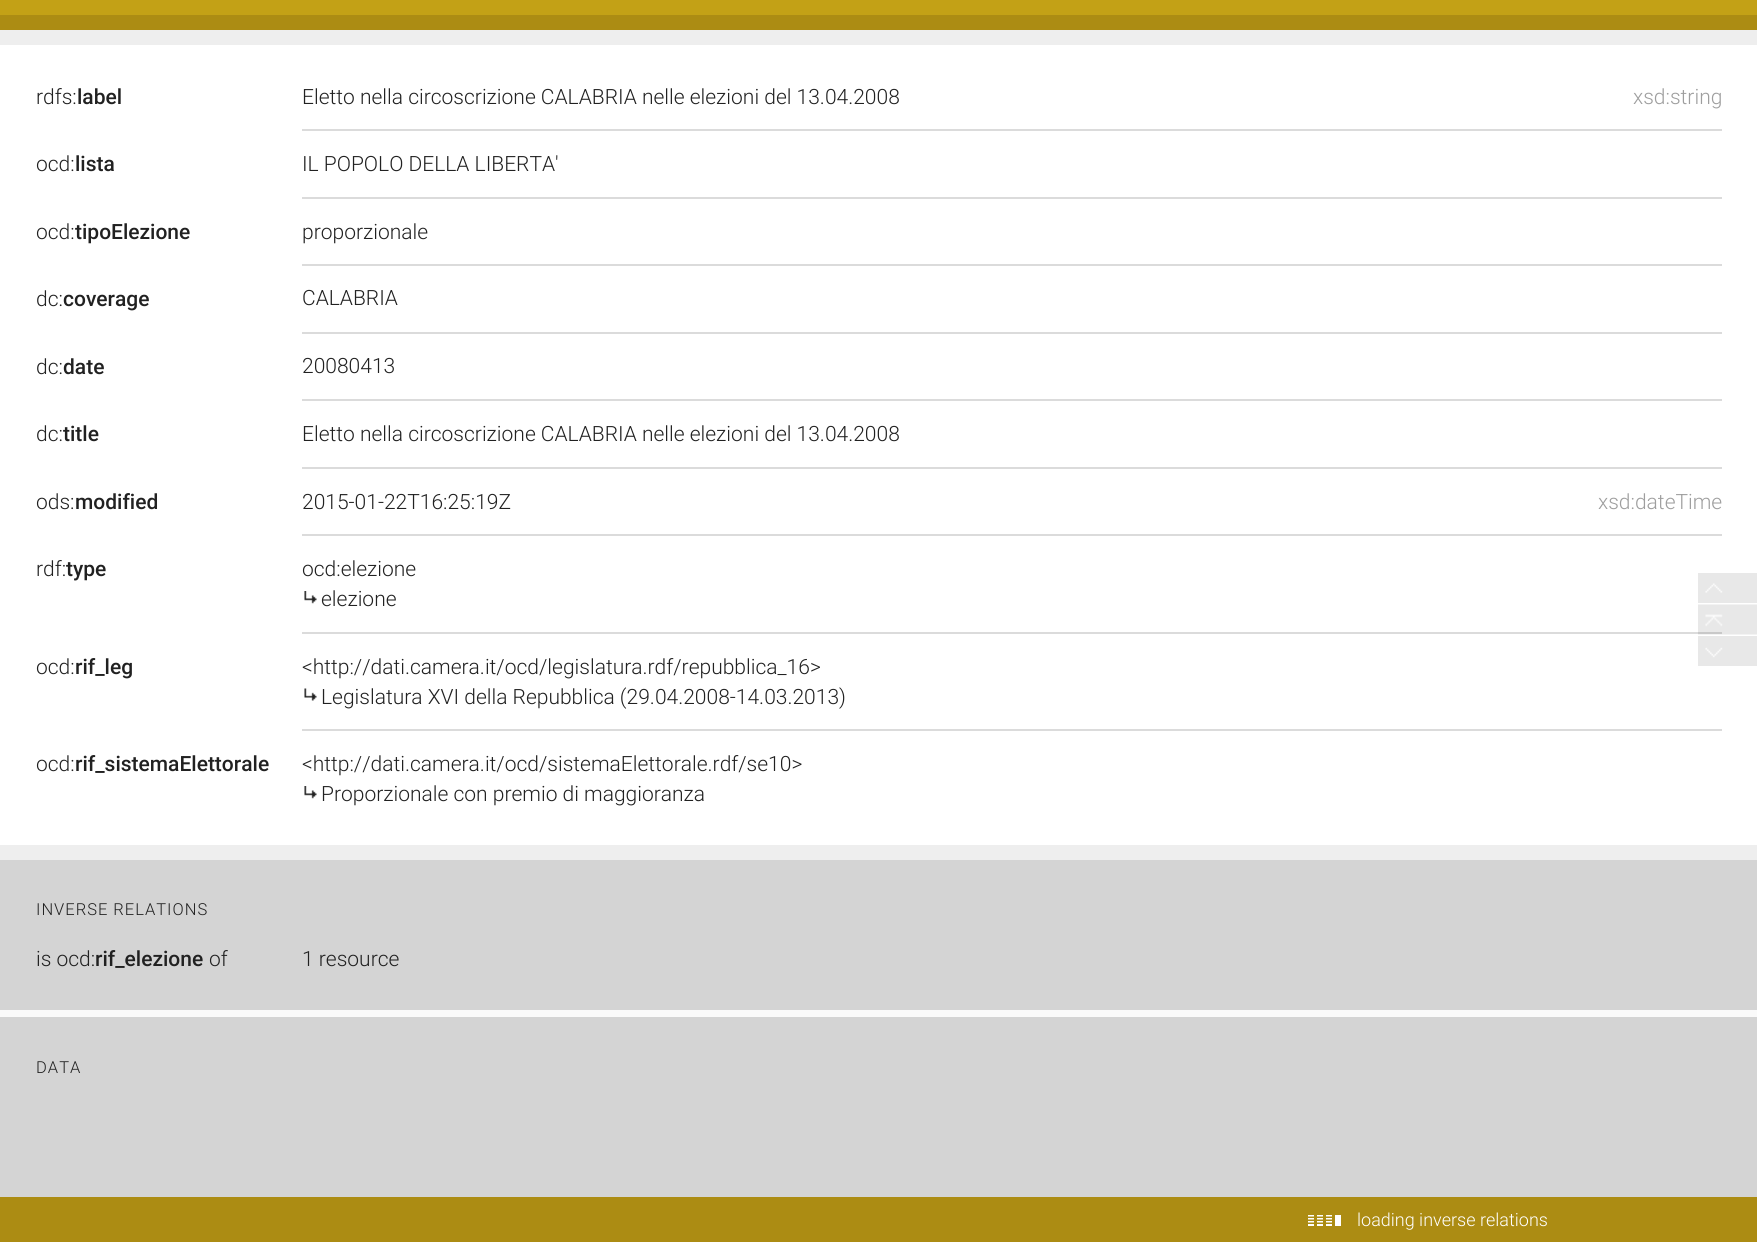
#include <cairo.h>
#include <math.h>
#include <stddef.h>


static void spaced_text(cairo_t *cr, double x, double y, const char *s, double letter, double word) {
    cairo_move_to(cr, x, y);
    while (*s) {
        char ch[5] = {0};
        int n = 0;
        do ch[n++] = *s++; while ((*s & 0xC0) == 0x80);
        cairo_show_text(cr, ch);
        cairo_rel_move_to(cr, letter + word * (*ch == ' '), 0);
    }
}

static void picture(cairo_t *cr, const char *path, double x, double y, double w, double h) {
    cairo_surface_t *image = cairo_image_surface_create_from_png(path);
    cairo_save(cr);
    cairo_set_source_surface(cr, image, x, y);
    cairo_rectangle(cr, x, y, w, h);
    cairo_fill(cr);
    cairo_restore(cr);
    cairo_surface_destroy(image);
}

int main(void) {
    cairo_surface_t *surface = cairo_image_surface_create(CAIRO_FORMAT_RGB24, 1757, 1242);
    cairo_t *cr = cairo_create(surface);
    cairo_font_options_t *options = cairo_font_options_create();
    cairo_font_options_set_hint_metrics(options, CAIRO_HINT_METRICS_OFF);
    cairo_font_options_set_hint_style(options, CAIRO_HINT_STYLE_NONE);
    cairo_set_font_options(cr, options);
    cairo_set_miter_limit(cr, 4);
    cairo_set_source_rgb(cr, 0.675, 0.549, 0.075);
    cairo_paint(cr);
    cairo_set_source_rgb(cr, 0.765, 0.631, 0.086);
    cairo_rectangle(cr, 0, 0, 1757, 15);
    cairo_fill(cr);
    cairo_set_source_rgb(cr, 0.933, 0.933, 0.933);
    cairo_rectangle(cr, 0, 30, 1757, 15);
    cairo_fill(cr);
    cairo_set_source_rgb(cr, 1, 1, 1);
    cairo_rectangle(cr, 0, 45, 1757, 800);
    cairo_fill(cr);
    cairo_select_font_face(cr, "Roboto Light", CAIRO_FONT_SLANT_NORMAL, CAIRO_FONT_WEIGHT_NORMAL);
    cairo_set_font_size(cr, 21);
    cairo_set_source_rgb(cr, 0.129, 0.129, 0.129);
    cairo_move_to(cr, 36, 104);
    cairo_show_text(cr, "rdfs:");
    cairo_select_font_face(cr, "Roboto Medium", CAIRO_FONT_SLANT_NORMAL, CAIRO_FONT_WEIGHT_NORMAL);
    cairo_move_to(cr, 77, 104);
    cairo_show_text(cr, "label");
    cairo_set_source_rgb(cr, 0.859, 0.859, 0.859);
    cairo_rectangle(cr, 302, 129, 1420, 2);
    cairo_fill(cr);
    cairo_select_font_face(cr, "Roboto Light", CAIRO_FONT_SLANT_NORMAL, CAIRO_FONT_WEIGHT_NORMAL);
    cairo_set_source_rgb(cr, 0.129, 0.129, 0.129);
    cairo_move_to(cr, 302, 104);
    cairo_show_text(cr, "Eletto nella circoscrizione CALABRIA nelle elezioni del 13.04.2008");
    cairo_set_source_rgb(cr, 0.62, 0.62, 0.62);
    cairo_move_to(cr, 1633, 104);
    cairo_show_text(cr, "xsd:string");
    cairo_set_source_rgb(cr, 0.129, 0.129, 0.129);
    cairo_move_to(cr, 36, 171);
    cairo_show_text(cr, "ocd:");
    cairo_select_font_face(cr, "Roboto Medium", CAIRO_FONT_SLANT_NORMAL, CAIRO_FONT_WEIGHT_NORMAL);
    cairo_move_to(cr, 75, 171);
    cairo_show_text(cr, "lista");
    cairo_set_source_rgb(cr, 0.859, 0.859, 0.859);
    cairo_rectangle(cr, 302, 197, 1420, 2);
    cairo_fill(cr);
    cairo_select_font_face(cr, "Roboto Light", CAIRO_FONT_SLANT_NORMAL, CAIRO_FONT_WEIGHT_NORMAL);
    cairo_set_source_rgb(cr, 0.129, 0.129, 0.129);
    cairo_move_to(cr, 302, 171);
    cairo_show_text(cr, "IL POPOLO DELLA LIBERTA'");
    cairo_move_to(cr, 36, 239);
    cairo_show_text(cr, "ocd:");
    cairo_select_font_face(cr, "Roboto Medium", CAIRO_FONT_SLANT_NORMAL, CAIRO_FONT_WEIGHT_NORMAL);
    cairo_move_to(cr, 75, 239);
    cairo_show_text(cr, "tipoElezione");
    cairo_set_source_rgb(cr, 0.859, 0.859, 0.859);
    cairo_rectangle(cr, 302, 264, 1420, 2);
    cairo_fill(cr);
    cairo_select_font_face(cr, "Roboto Light", CAIRO_FONT_SLANT_NORMAL, CAIRO_FONT_WEIGHT_NORMAL);
    cairo_set_source_rgb(cr, 0.129, 0.129, 0.129);
    cairo_move_to(cr, 302, 239);
    cairo_show_text(cr, "proporzionale");
    cairo_move_to(cr, 36, 306);
    cairo_show_text(cr, "dc:");
    cairo_select_font_face(cr, "Roboto Medium", CAIRO_FONT_SLANT_NORMAL, CAIRO_FONT_WEIGHT_NORMAL);
    cairo_move_to(cr, 63, 306);
    cairo_show_text(cr, "coverage");
    cairo_set_source_rgb(cr, 0.859, 0.859, 0.859);
    cairo_rectangle(cr, 302, 332, 1420, 2);
    cairo_fill(cr);
    cairo_select_font_face(cr, "Roboto Light", CAIRO_FONT_SLANT_NORMAL, CAIRO_FONT_WEIGHT_NORMAL);
    cairo_set_source_rgb(cr, 0.129, 0.129, 0.129);
    cairo_move_to(cr, 302, 305);
    cairo_show_text(cr, "CALABRIA");
    cairo_move_to(cr, 36, 374);
    cairo_show_text(cr, "dc:");
    cairo_select_font_face(cr, "Roboto Medium", CAIRO_FONT_SLANT_NORMAL, CAIRO_FONT_WEIGHT_NORMAL);
    cairo_move_to(cr, 63, 374);
    cairo_show_text(cr, "date");
    cairo_set_source_rgb(cr, 0.859, 0.859, 0.859);
    cairo_rectangle(cr, 302, 399, 1420, 2);
    cairo_fill(cr);
    cairo_select_font_face(cr, "Roboto Light", CAIRO_FONT_SLANT_NORMAL, CAIRO_FONT_WEIGHT_NORMAL);
    cairo_set_source_rgb(cr, 0.129, 0.129, 0.129);
    cairo_move_to(cr, 302, 373);
    cairo_show_text(cr, "20080413");
    cairo_move_to(cr, 36, 441);
    cairo_show_text(cr, "dc:");
    cairo_select_font_face(cr, "Roboto Medium", CAIRO_FONT_SLANT_NORMAL, CAIRO_FONT_WEIGHT_NORMAL);
    cairo_move_to(cr, 63, 441);
    cairo_show_text(cr, "title");
    cairo_set_source_rgb(cr, 0.859, 0.859, 0.859);
    cairo_rectangle(cr, 302, 467, 1420, 2);
    cairo_fill(cr);
    cairo_select_font_face(cr, "Roboto Light", CAIRO_FONT_SLANT_NORMAL, CAIRO_FONT_WEIGHT_NORMAL);
    cairo_set_source_rgb(cr, 0.129, 0.129, 0.129);
    cairo_move_to(cr, 302, 441);
    cairo_show_text(cr, "Eletto nella circoscrizione CALABRIA nelle elezioni del 13.04.2008");
    cairo_move_to(cr, 36, 509);
    cairo_show_text(cr, "ods:");
    cairo_select_font_face(cr, "Roboto Medium", CAIRO_FONT_SLANT_NORMAL, CAIRO_FONT_WEIGHT_NORMAL);
    cairo_move_to(cr, 75, 509);
    cairo_show_text(cr, "modified");
    cairo_set_source_rgb(cr, 0.859, 0.859, 0.859);
    cairo_rectangle(cr, 302, 534, 1420, 2);
    cairo_fill(cr);
    cairo_select_font_face(cr, "Roboto Light", CAIRO_FONT_SLANT_NORMAL, CAIRO_FONT_WEIGHT_NORMAL);
    cairo_set_source_rgb(cr, 0.129, 0.129, 0.129);
    cairo_move_to(cr, 302, 509);
    cairo_show_text(cr, "2015-01-22T16:25:19Z");
    cairo_set_source_rgb(cr, 0.62, 0.62, 0.62);
    cairo_move_to(cr, 1598, 509);
    cairo_show_text(cr, "xsd:dateTime");
    cairo_set_source_rgb(cr, 0.129, 0.129, 0.129);
    cairo_move_to(cr, 36, 576);
    cairo_show_text(cr, "rdf:");
    cairo_select_font_face(cr, "Roboto Medium", CAIRO_FONT_SLANT_NORMAL, CAIRO_FONT_WEIGHT_NORMAL);
    cairo_move_to(cr, 66, 576);
    cairo_show_text(cr, "type");
    cairo_set_source_rgb(cr, 0.859, 0.859, 0.859);
    cairo_rectangle(cr, 302, 632, 1420, 2);
    cairo_fill(cr);
    cairo_select_font_face(cr, "Roboto Light", CAIRO_FONT_SLANT_NORMAL, CAIRO_FONT_WEIGHT_NORMAL);
    cairo_set_source_rgb(cr, 0.129, 0.129, 0.129);
    cairo_move_to(cr, 302, 576);
    cairo_show_text(cr, "ocd:elezione");
    picture(cr, "img1.png", 304, 591, 13, 13);
    cairo_move_to(cr, 321, 606);
    cairo_show_text(cr, "elezione");
    cairo_move_to(cr, 36, 674);
    cairo_show_text(cr, "ocd:");
    cairo_select_font_face(cr, "Roboto Medium", CAIRO_FONT_SLANT_NORMAL, CAIRO_FONT_WEIGHT_NORMAL);
    cairo_move_to(cr, 75, 674);
    cairo_show_text(cr, "rif_leg");
    cairo_set_source_rgb(cr, 0.859, 0.859, 0.859);
    cairo_rectangle(cr, 302, 729, 1420, 2);
    cairo_fill(cr);
    cairo_select_font_face(cr, "Roboto Light", CAIRO_FONT_SLANT_NORMAL, CAIRO_FONT_WEIGHT_NORMAL);
    cairo_set_source_rgb(cr, 0.129, 0.129, 0.129);
    cairo_move_to(cr, 302, 674);
    cairo_show_text(cr, "<http://dati.camera.it/ocd/legislatura.rdf/repubblica_16>");
    picture(cr, "img2.png", 304, 688, 13, 13);
    cairo_move_to(cr, 321, 704);
    cairo_show_text(cr, "Legislatura XVI della Repubblica (29.04.2008-14.03.2013)");
    cairo_move_to(cr, 36, 771);
    cairo_show_text(cr, "ocd:");
    cairo_select_font_face(cr, "Roboto Medium", CAIRO_FONT_SLANT_NORMAL, CAIRO_FONT_WEIGHT_NORMAL);
    cairo_move_to(cr, 75, 771);
    cairo_show_text(cr, "rif_sistemaElettorale");
    cairo_select_font_face(cr, "Roboto Light", CAIRO_FONT_SLANT_NORMAL, CAIRO_FONT_WEIGHT_NORMAL);
    cairo_move_to(cr, 302, 771);
    cairo_show_text(cr, "<http://dati.camera.it/ocd/sistemaElettorale.rdf/se10>");
    picture(cr, "img1.png", 304, 786, 13, 13);
    cairo_move_to(cr, 321, 801);
    cairo_show_text(cr, "Proporzionale con premio di maggioranza");
    cairo_set_source_rgb(cr, 0.933, 0.933, 0.933);
    cairo_rectangle(cr, 0, 845, 1757, 15);
    cairo_fill(cr);
    cairo_set_source_rgb(cr, 0.831, 0.831, 0.831);
    cairo_rectangle(cr, 0, 860, 1757, 150);
    cairo_fill(cr);
    cairo_set_font_size(cr, 16.5);
    cairo_set_source_rgb(cr, 0.129, 0.129, 0.129);
    spaced_text(cr, 36, 915, "INVERSE RELATIONS", 1, 0);
    cairo_set_font_size(cr, 21);
    cairo_move_to(cr, 36, 966);
    cairo_show_text(cr, "is ocd:");
    cairo_select_font_face(cr, "Roboto Medium", CAIRO_FONT_SLANT_NORMAL, CAIRO_FONT_WEIGHT_NORMAL);
    cairo_move_to(cr, 95, 966);
    cairo_show_text(cr, "rif_elezione");
    cairo_select_font_face(cr, "Roboto Light", CAIRO_FONT_SLANT_NORMAL, CAIRO_FONT_WEIGHT_NORMAL);
    cairo_move_to(cr, 209, 966);
    cairo_show_text(cr, "of");
    cairo_move_to(cr, 302, 966);
    cairo_show_text(cr, "1 resource");
    cairo_set_source_rgb(cr, 0.98, 0.98, 0.98);
    cairo_rectangle(cr, 0, 1010, 1757, 7);
    cairo_fill(cr);
    cairo_set_source_rgb(cr, 0.831, 0.831, 0.831);
    cairo_rectangle(cr, 0, 1017, 1757, 180);
    cairo_fill(cr);
    cairo_set_font_size(cr, 16.5);
    cairo_set_source_rgb(cr, 0.129, 0.129, 0.129);
    spaced_text(cr, 36, 1073, "DATA", 1, 0);
    picture(cr, "img3.png", 1698, 573, 59, 30);
    picture(cr, "img4.png", 1698, 604, 59, 31);
    picture(cr, "img5.png", 1698, 636, 59, 30);
    picture(cr, "img6.png", 1308, 1215, 33, 11);
    cairo_set_font_size(cr, 18);
    cairo_set_source_rgb(cr, 1, 1, 1);
    cairo_move_to(cr, 1357, 1226);
    cairo_show_text(cr, "loading inverse relations");
    cairo_surface_write_to_png(surface, "page.png");
    cairo_font_options_destroy(options);
    cairo_destroy(cr);
    cairo_surface_destroy(surface);
    return 0;
}
